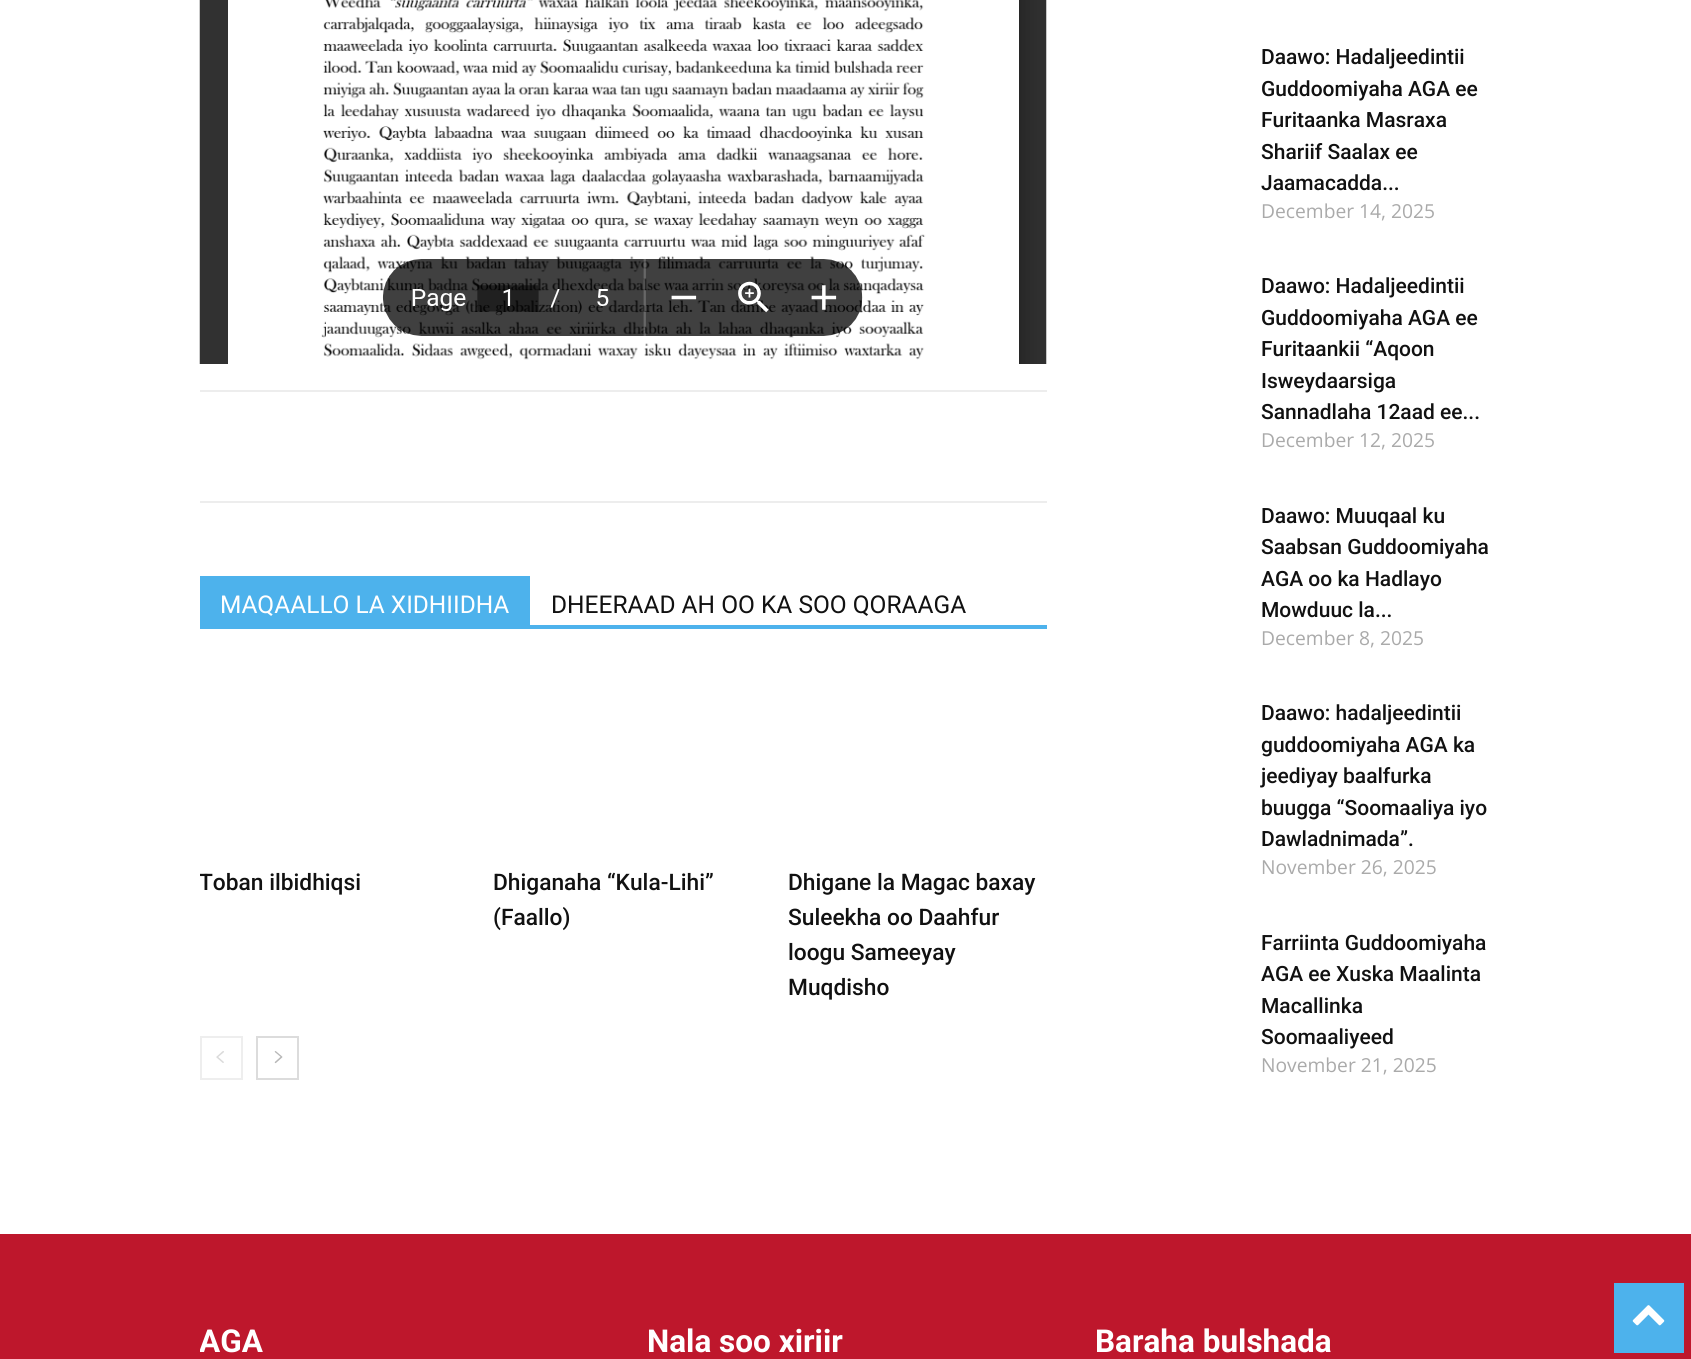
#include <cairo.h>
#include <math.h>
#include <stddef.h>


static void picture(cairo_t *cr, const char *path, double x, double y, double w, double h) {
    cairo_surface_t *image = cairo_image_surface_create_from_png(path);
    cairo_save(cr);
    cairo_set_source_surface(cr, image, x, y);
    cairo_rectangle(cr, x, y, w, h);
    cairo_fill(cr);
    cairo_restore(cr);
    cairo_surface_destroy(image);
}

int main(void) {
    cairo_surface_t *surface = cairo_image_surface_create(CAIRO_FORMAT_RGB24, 1691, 1359);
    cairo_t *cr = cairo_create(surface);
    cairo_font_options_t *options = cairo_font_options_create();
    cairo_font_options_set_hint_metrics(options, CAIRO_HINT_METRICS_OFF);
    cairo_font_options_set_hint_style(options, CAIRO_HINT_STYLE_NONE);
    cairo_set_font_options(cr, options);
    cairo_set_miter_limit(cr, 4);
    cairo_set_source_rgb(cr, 1, 1, 1);
    cairo_paint(cr);
    picture(cr, "img1.png", 199, 0, 848, 364);
    cairo_set_source_rgb(cr, 0.929, 0.929, 0.929);
    cairo_rectangle(cr, 200, 390, 847, 2);
    cairo_fill(cr);
    cairo_rectangle(cr, 200, 501, 847, 2);
    cairo_fill(cr);
    cairo_set_source_rgb(cr, 0.302, 0.698, 0.925);
    cairo_rectangle(cr, 200, 625, 847, 4);
    cairo_fill(cr);
    cairo_rectangle(cr, 200, 576, 330, 49);
    cairo_fill(cr);
    cairo_select_font_face(cr, "Roboto", CAIRO_FONT_SLANT_NORMAL, CAIRO_FONT_WEIGHT_NORMAL);
    cairo_set_font_size(cr, 24.5);
    cairo_set_source_rgb(cr, 1, 1, 1);
    cairo_move_to(cr, 220, 613);
    cairo_show_text(cr, "MAQAALLO LA XIDHIIDHA");
    cairo_set_source_rgb(cr, 0.067, 0.067, 0.067);
    cairo_move_to(cr, 551, 613);
    cairo_show_text(cr, "DHEERAAD AH OO KA SOO QORAAGA");
    cairo_save(cr);
    cairo_rectangle(cr, 200, 576, 847, 504);
    cairo_clip(cr);
    cairo_select_font_face(cr, "Roboto Medium", CAIRO_FONT_SLANT_NORMAL, CAIRO_FONT_WEIGHT_NORMAL);
    cairo_set_font_size(cr, 22.75);
    cairo_move_to(cr, 199, 890);
    cairo_show_text(cr, "Toban ilbidhiqsi");
    cairo_restore(cr);
    cairo_select_font_face(cr, "Roboto Medium", CAIRO_FONT_SLANT_NORMAL, CAIRO_FONT_WEIGHT_NORMAL);
    cairo_set_font_size(cr, 22.75);
    cairo_move_to(cr, 493, 890);
    cairo_show_text(cr, "Dhiganaha “Kula-Lihi”");
    cairo_move_to(cr, 493, 925);
    cairo_show_text(cr, "(Faallo)");
    cairo_move_to(cr, 788, 890);
    cairo_show_text(cr, "Dhigane la Magac baxay");
    cairo_move_to(cr, 788, 925);
    cairo_show_text(cr, "Suleekha oo Daahfur");
    cairo_move_to(cr, 788, 960);
    cairo_show_text(cr, "loogu Sameeyay");
    cairo_move_to(cr, 788, 995);
    cairo_show_text(cr, "Muqdisho");
    cairo_rectangle(cr, 201, 1037, 41, 42);
    cairo_set_source_rgb(cr, 0.933, 0.933, 0.933);
    cairo_stroke(cr);
    picture(cr, "img2.png", 216, 1051, 8, 12);
    cairo_rectangle(cr, 257, 1037, 41, 42);
    cairo_set_source_rgb(cr, 0.863, 0.863, 0.863);
    cairo_stroke(cr);
    picture(cr, "img3.png", 274, 1051, 9, 13);
    cairo_set_font_size(cr, 21);
    cairo_set_source_rgb(cr, 0.067, 0.067, 0.067);
    cairo_move_to(cr, 1261, 64);
    cairo_show_text(cr, "Daawo: Hadaljeedintii");
    cairo_move_to(cr, 1261, 96);
    cairo_show_text(cr, "Guddoomiyaha AGA ee");
    cairo_move_to(cr, 1261, 127);
    cairo_show_text(cr, "Furitaanka Masraxa");
    cairo_move_to(cr, 1261, 159);
    cairo_show_text(cr, "Shariif Saalax ee");
    cairo_move_to(cr, 1261, 190);
    cairo_show_text(cr, "Jaamacadda...");
    cairo_select_font_face(cr, "Open Sans", CAIRO_FONT_SLANT_NORMAL, CAIRO_FONT_WEIGHT_NORMAL);
    cairo_set_font_size(cr, 19.25);
    cairo_set_source_rgb(cr, 0.667, 0.667, 0.667);
    cairo_move_to(cr, 1261, 218);
    cairo_show_text(cr, "December 14, 2025");
    cairo_select_font_face(cr, "Roboto Medium", CAIRO_FONT_SLANT_NORMAL, CAIRO_FONT_WEIGHT_NORMAL);
    cairo_set_font_size(cr, 21);
    cairo_set_source_rgb(cr, 0.067, 0.067, 0.067);
    cairo_move_to(cr, 1261, 293);
    cairo_show_text(cr, "Daawo: Hadaljeedintii");
    cairo_move_to(cr, 1261, 325);
    cairo_show_text(cr, "Guddoomiyaha AGA ee");
    cairo_move_to(cr, 1261, 356);
    cairo_show_text(cr, "Furitaankii “Aqoon");
    cairo_move_to(cr, 1261, 388);
    cairo_show_text(cr, "Isweydaarsiga");
    cairo_move_to(cr, 1261, 419);
    cairo_show_text(cr, "Sannadlaha 12aad ee...");
    cairo_select_font_face(cr, "Open Sans", CAIRO_FONT_SLANT_NORMAL, CAIRO_FONT_WEIGHT_NORMAL);
    cairo_set_font_size(cr, 19.25);
    cairo_set_source_rgb(cr, 0.667, 0.667, 0.667);
    cairo_move_to(cr, 1261, 447);
    cairo_show_text(cr, "December 12, 2025");
    cairo_select_font_face(cr, "Roboto Medium", CAIRO_FONT_SLANT_NORMAL, CAIRO_FONT_WEIGHT_NORMAL);
    cairo_set_font_size(cr, 21);
    cairo_set_source_rgb(cr, 0.067, 0.067, 0.067);
    cairo_move_to(cr, 1261, 523);
    cairo_show_text(cr, "Daawo: Muuqaal ku");
    cairo_move_to(cr, 1261, 554);
    cairo_show_text(cr, "Saabsan Guddoomiyaha");
    cairo_move_to(cr, 1261, 586);
    cairo_show_text(cr, "AGA oo ka Hadlayo");
    cairo_move_to(cr, 1261, 617);
    cairo_show_text(cr, "Mowduuc la...");
    cairo_select_font_face(cr, "Open Sans", CAIRO_FONT_SLANT_NORMAL, CAIRO_FONT_WEIGHT_NORMAL);
    cairo_set_font_size(cr, 19.25);
    cairo_set_source_rgb(cr, 0.667, 0.667, 0.667);
    cairo_move_to(cr, 1261, 645);
    cairo_show_text(cr, "December 8, 2025");
    cairo_select_font_face(cr, "Roboto Medium", CAIRO_FONT_SLANT_NORMAL, CAIRO_FONT_WEIGHT_NORMAL);
    cairo_set_font_size(cr, 21);
    cairo_set_source_rgb(cr, 0.067, 0.067, 0.067);
    cairo_move_to(cr, 1261, 720);
    cairo_show_text(cr, "Daawo: hadaljeedintii");
    cairo_move_to(cr, 1261, 752);
    cairo_show_text(cr, "guddoomiyaha AGA ka");
    cairo_move_to(cr, 1261, 783);
    cairo_show_text(cr, "jeediyay baalfurka");
    cairo_move_to(cr, 1261, 815);
    cairo_show_text(cr, "buugga “Soomaaliya iyo");
    cairo_move_to(cr, 1261, 846);
    cairo_show_text(cr, "Dawladnimada”.");
    cairo_select_font_face(cr, "Open Sans", CAIRO_FONT_SLANT_NORMAL, CAIRO_FONT_WEIGHT_NORMAL);
    cairo_set_font_size(cr, 19.25);
    cairo_set_source_rgb(cr, 0.667, 0.667, 0.667);
    cairo_move_to(cr, 1261, 874);
    cairo_show_text(cr, "November 26, 2025");
    cairo_select_font_face(cr, "Roboto Medium", CAIRO_FONT_SLANT_NORMAL, CAIRO_FONT_WEIGHT_NORMAL);
    cairo_set_font_size(cr, 21);
    cairo_set_source_rgb(cr, 0.067, 0.067, 0.067);
    cairo_move_to(cr, 1261, 950);
    cairo_show_text(cr, "Farriinta Guddoomiyaha");
    cairo_move_to(cr, 1261, 981);
    cairo_show_text(cr, "AGA ee Xuska Maalinta");
    cairo_move_to(cr, 1261, 1013);
    cairo_show_text(cr, "Macallinka");
    cairo_move_to(cr, 1261, 1044);
    cairo_show_text(cr, "Soomaaliyeed");
    cairo_select_font_face(cr, "Open Sans", CAIRO_FONT_SLANT_NORMAL, CAIRO_FONT_WEIGHT_NORMAL);
    cairo_set_font_size(cr, 19.25);
    cairo_set_source_rgb(cr, 0.667, 0.667, 0.667);
    cairo_move_to(cr, 1261, 1072);
    cairo_show_text(cr, "November 21, 2025");
    cairo_set_source_rgb(cr, 0.745, 0.09, 0.173);
    cairo_rectangle(cr, 0, 1234, 1691, 125);
    cairo_fill(cr);
    cairo_save(cr);
    cairo_rectangle(cr, 200, 1313, 399, 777);
    cairo_clip(cr);
    cairo_select_font_face(cr, "Roboto", CAIRO_FONT_SLANT_NORMAL, CAIRO_FONT_WEIGHT_BOLD);
    cairo_set_font_size(cr, 31.5);
    cairo_set_source_rgb(cr, 1, 1, 1);
    cairo_move_to(cr, 199, 1352);
    cairo_show_text(cr, "AGA");
    cairo_restore(cr);
    cairo_select_font_face(cr, "Roboto", CAIRO_FONT_SLANT_NORMAL, CAIRO_FONT_WEIGHT_BOLD);
    cairo_set_font_size(cr, 31.5);
    cairo_set_source_rgb(cr, 1, 1, 1);
    cairo_move_to(cr, 647, 1352);
    cairo_show_text(cr, "Nala soo xiriir");
    cairo_move_to(cr, 1095, 1352);
    cairo_show_text(cr, "Baraha bulshada");
    cairo_set_source_rgb(cr, 0.302, 0.698, 0.925);
    cairo_rectangle(cr, 1614, 1283, 70, 70);
    cairo_fill(cr);
    picture(cr, "img4.png", 1632, 1305, 33, 21);
    cairo_surface_write_to_png(surface, "page.png");
    cairo_font_options_destroy(options);
    cairo_destroy(cr);
    cairo_surface_destroy(surface);
    return 0;
}
